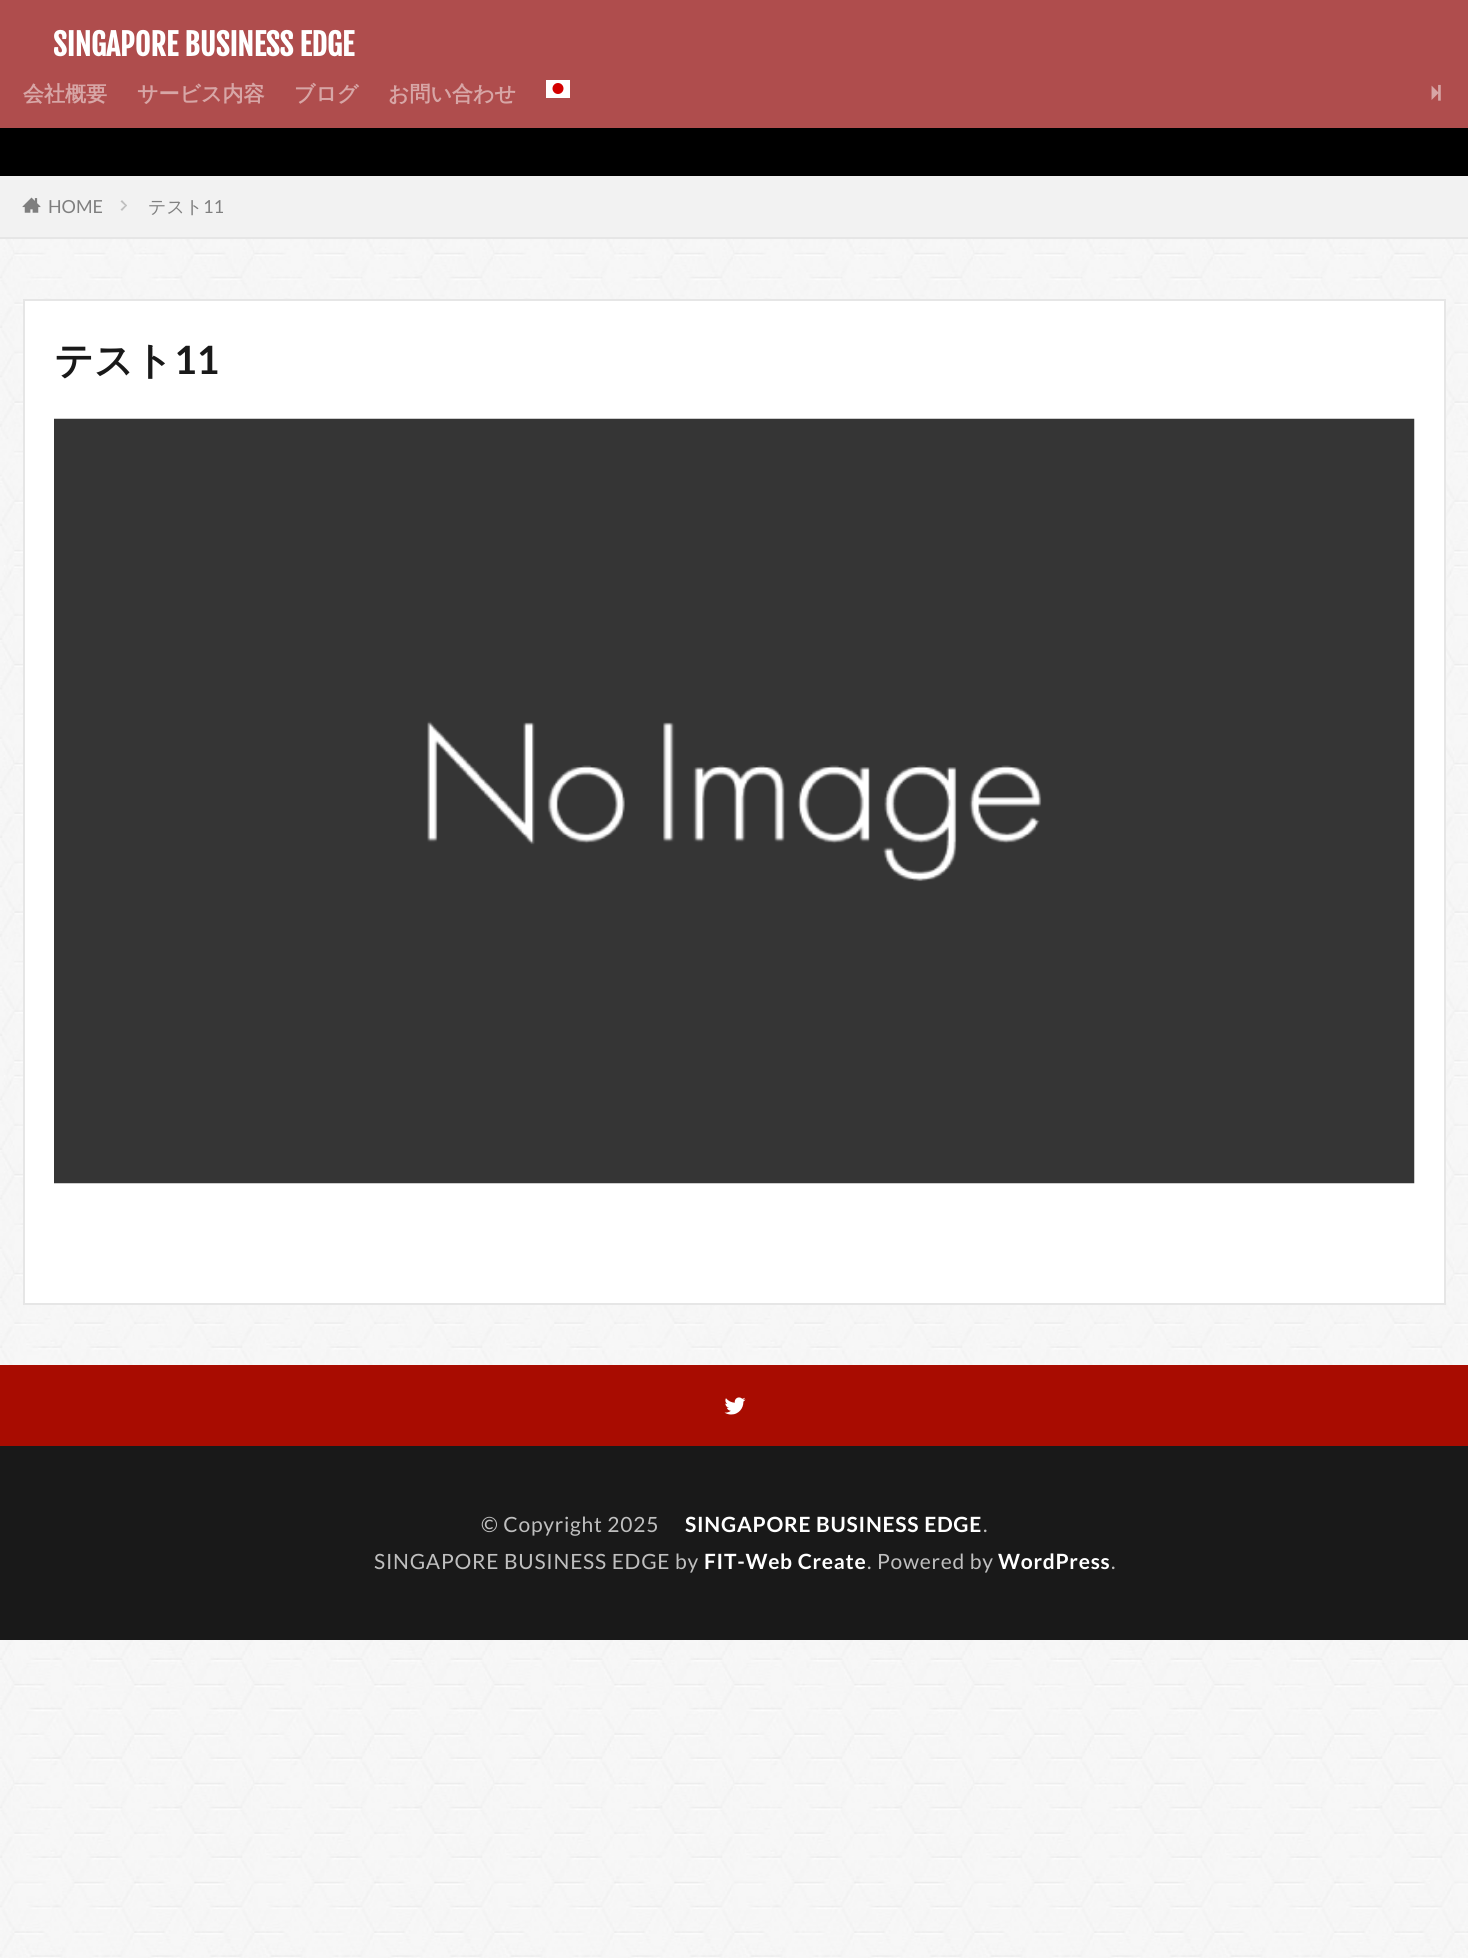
#include <cairo.h>
#include <math.h>
#include <stddef.h>


static void spaced_text(cairo_t *cr, double x, double y, const char *s, double letter, double word) {
    cairo_move_to(cr, x, y);
    while (*s) {
        char ch[5] = {0};
        int n = 0;
        do ch[n++] = *s++; while ((*s & 0xC0) == 0x80);
        cairo_show_text(cr, ch);
        cairo_rel_move_to(cr, letter + word * (*ch == ' '), 0);
    }
}

static void picture(cairo_t *cr, const char *path, double x, double y, double w, double h) {
    cairo_surface_t *image = cairo_image_surface_create_from_png(path);
    cairo_save(cr);
    cairo_set_source_surface(cr, image, x, y);
    cairo_rectangle(cr, x, y, w, h);
    cairo_fill(cr);
    cairo_restore(cr);
    cairo_surface_destroy(image);
}

int main(void) {
    cairo_surface_t *surface = cairo_image_surface_create(CAIRO_FORMAT_RGB24, 1468, 1958);
    cairo_t *cr = cairo_create(surface);
    cairo_font_options_t *options = cairo_font_options_create();
    cairo_font_options_set_hint_metrics(options, CAIRO_HINT_METRICS_OFF);
    cairo_font_options_set_hint_style(options, CAIRO_HINT_STYLE_NONE);
    cairo_set_font_options(cr, options);
    cairo_set_miter_limit(cr, 4);
    cairo_set_source_rgb(cr, 1, 1, 1);
    cairo_paint(cr);
    picture(cr, "img1.png", 0, 239, 1468, 1719);
    cairo_set_source_rgb(cr, 0.686, 0.302, 0.302);
    cairo_rectangle(cr, 0, 0, 1468, 128);
    cairo_fill(cr);
    cairo_select_font_face(cr, "Fjalla One", CAIRO_FONT_SLANT_NORMAL, CAIRO_FONT_WEIGHT_BOLD);
    cairo_set_font_size(cr, 30);
    cairo_set_source_rgb(cr, 1, 1, 1);
    cairo_move_to(cr, 53, 56);
    cairo_show_text(cr, "SINGAPORE BUSINESS EDGE");
    cairo_select_font_face(cr, "WenQuanYi Zen Hei", CAIRO_FONT_SLANT_NORMAL, CAIRO_FONT_WEIGHT_BOLD);
    cairo_set_font_size(cr, 21);
    cairo_set_source_rgb(cr, 0.843, 0.651, 0.651);
    cairo_move_to(cr, 23, 101);
    cairo_show_text(cr, "会社概要");
    cairo_move_to(cr, 137, 101);
    cairo_show_text(cr, "サービス内容");
    cairo_move_to(cr, 294, 101);
    cairo_show_text(cr, "ブログ");
    cairo_move_to(cr, 388, 101);
    cairo_show_text(cr, "お問い合わせ");
    cairo_set_source_rgb(cr, 1, 1, 1);
    cairo_rectangle(cr, 546, 80, 24, 18);
    cairo_fill(cr);
    cairo_set_source_rgb(cr, 0.827, 0, 0);
    cairo_arc(cr, 558, 88.5, 5.5, 0, 2 * M_PI);
    cairo_fill(cr);
    picture(cr, "img2.png", 1431, 84, 10, 17);
    cairo_set_source_rgb(cr, 0, 0, 0);
    cairo_rectangle(cr, 0, 128, 1468, 48);
    cairo_fill(cr);
    cairo_set_source_rgb(cr, 0.949, 0.949, 0.949);
    cairo_rectangle(cr, 0, 176, 1468, 61);
    cairo_fill(cr);
    cairo_set_source_rgb(cr, 0.902, 0.902, 0.902);
    cairo_rectangle(cr, 0, 237, 1468, 2);
    cairo_fill(cr);
    picture(cr, "img3.png", 22, 197, 19, 16);
    cairo_select_font_face(cr, "Lato", CAIRO_FONT_SLANT_NORMAL, CAIRO_FONT_WEIGHT_NORMAL);
    cairo_set_font_size(cr, 18);
    cairo_set_source_rgb(cr, 0.498, 0.498, 0.498);
    cairo_move_to(cr, 48, 213);
    cairo_show_text(cr, "HOME");
    cairo_set_source_rgb(cr, 0.749, 0.749, 0.749);
    cairo_new_path(cr);
    cairo_move_to(cr, 122, 200);
    cairo_line_to(cr, 127, 205.5);
    cairo_line_to(cr, 126, 206.5);
    cairo_line_to(cr, 120.5, 201.5);
    cairo_close_path(cr);
    cairo_fill(cr);
    cairo_new_path(cr);
    cairo_move_to(cr, 126, 204.5);
    cairo_line_to(cr, 127, 205.5);
    cairo_line_to(cr, 122, 211);
    cairo_line_to(cr, 120.5, 209.5);
    cairo_close_path(cr);
    cairo_fill(cr);
    cairo_select_font_face(cr, "WenQuanYi Zen Hei Medium", CAIRO_FONT_SLANT_NORMAL, CAIRO_FONT_WEIGHT_NORMAL);
    cairo_set_source_rgb(cr, 0.498, 0.498, 0.498);
    cairo_move_to(cr, 148, 213);
    cairo_show_text(cr, "テスト");
    cairo_select_font_face(cr, "Lato", CAIRO_FONT_SLANT_NORMAL, CAIRO_FONT_WEIGHT_NORMAL);
    cairo_move_to(cr, 203, 213);
    cairo_show_text(cr, "11");
    cairo_set_source_rgb(cr, 1, 1, 1);
    cairo_rectangle(cr, 24, 300, 1421, 1004);
    cairo_fill_preserve(cr);
    cairo_set_source_rgb(cr, 0.902, 0.902, 0.902);
    cairo_stroke(cr);
    cairo_select_font_face(cr, "WenQuanYi Zen Hei", CAIRO_FONT_SLANT_NORMAL, CAIRO_FONT_WEIGHT_BOLD);
    cairo_set_font_size(cr, 39);
    cairo_set_source_rgb(cr, 0.098, 0.098, 0.098);
    cairo_move_to(cr, 54, 374);
    cairo_show_text(cr, "テスト");
    cairo_select_font_face(cr, "Lato", CAIRO_FONT_SLANT_NORMAL, CAIRO_FONT_WEIGHT_BOLD);
    cairo_move_to(cr, 174, 374);
    cairo_show_text(cr, "11");
    picture(cr, "img4.png", 54, 418, 1361, 766);
    cairo_set_source_rgb(cr, 0.659, 0.047, 0.004);
    cairo_rectangle(cr, 0, 1365, 1468, 81);
    cairo_fill(cr);
    picture(cr, "img5.png", 724, 1397, 22, 18);
    cairo_set_source_rgb(cr, 0.098, 0.098, 0.098);
    cairo_rectangle(cr, 0, 1446, 1468, 194);
    cairo_fill(cr);
    cairo_select_font_face(cr, "Lato", CAIRO_FONT_SLANT_NORMAL, CAIRO_FONT_WEIGHT_NORMAL);
    cairo_set_font_size(cr, 21);
    cairo_set_source_rgb(cr, 0.749, 0.749, 0.749);
    spaced_text(cr, 481, 1532, "© Copyright 2025", 0.75, 0);
    cairo_select_font_face(cr, "Lato", CAIRO_FONT_SLANT_NORMAL, CAIRO_FONT_WEIGHT_BOLD);
    cairo_set_source_rgb(cr, 1, 1, 1);
    spaced_text(cr, 685, 1532, "SINGAPORE BUSINESS EDGE", 0.75, 0);
    cairo_select_font_face(cr, "Lato", CAIRO_FONT_SLANT_NORMAL, CAIRO_FONT_WEIGHT_NORMAL);
    cairo_set_source_rgb(cr, 0.749, 0.749, 0.749);
    spaced_text(cr, 983, 1532, ".", 0.75, 0);
    spaced_text(cr, 374, 1569, "SINGAPORE BUSINESS EDGE by", 0.75, 0);
    cairo_select_font_face(cr, "Lato", CAIRO_FONT_SLANT_NORMAL, CAIRO_FONT_WEIGHT_BOLD);
    cairo_set_source_rgb(cr, 1, 1, 1);
    spaced_text(cr, 704, 1569, "FIT-Web Create", 0.75, 0);
    cairo_select_font_face(cr, "Lato", CAIRO_FONT_SLANT_NORMAL, CAIRO_FONT_WEIGHT_NORMAL);
    cairo_set_source_rgb(cr, 0.749, 0.749, 0.749);
    spaced_text(cr, 867, 1569, ". Powered by", 0.75, 0);
    cairo_select_font_face(cr, "Lato", CAIRO_FONT_SLANT_NORMAL, CAIRO_FONT_WEIGHT_BOLD);
    cairo_set_source_rgb(cr, 1, 1, 1);
    spaced_text(cr, 998, 1569, "WordPress", 0.75, 0);
    cairo_select_font_face(cr, "Lato", CAIRO_FONT_SLANT_NORMAL, CAIRO_FONT_WEIGHT_NORMAL);
    cairo_set_source_rgb(cr, 0.749, 0.749, 0.749);
    spaced_text(cr, 1111, 1569, ".", 0.75, 0);
    cairo_surface_write_to_png(surface, "page.png");
    cairo_font_options_destroy(options);
    cairo_destroy(cr);
    cairo_surface_destroy(surface);
    return 0;
}
